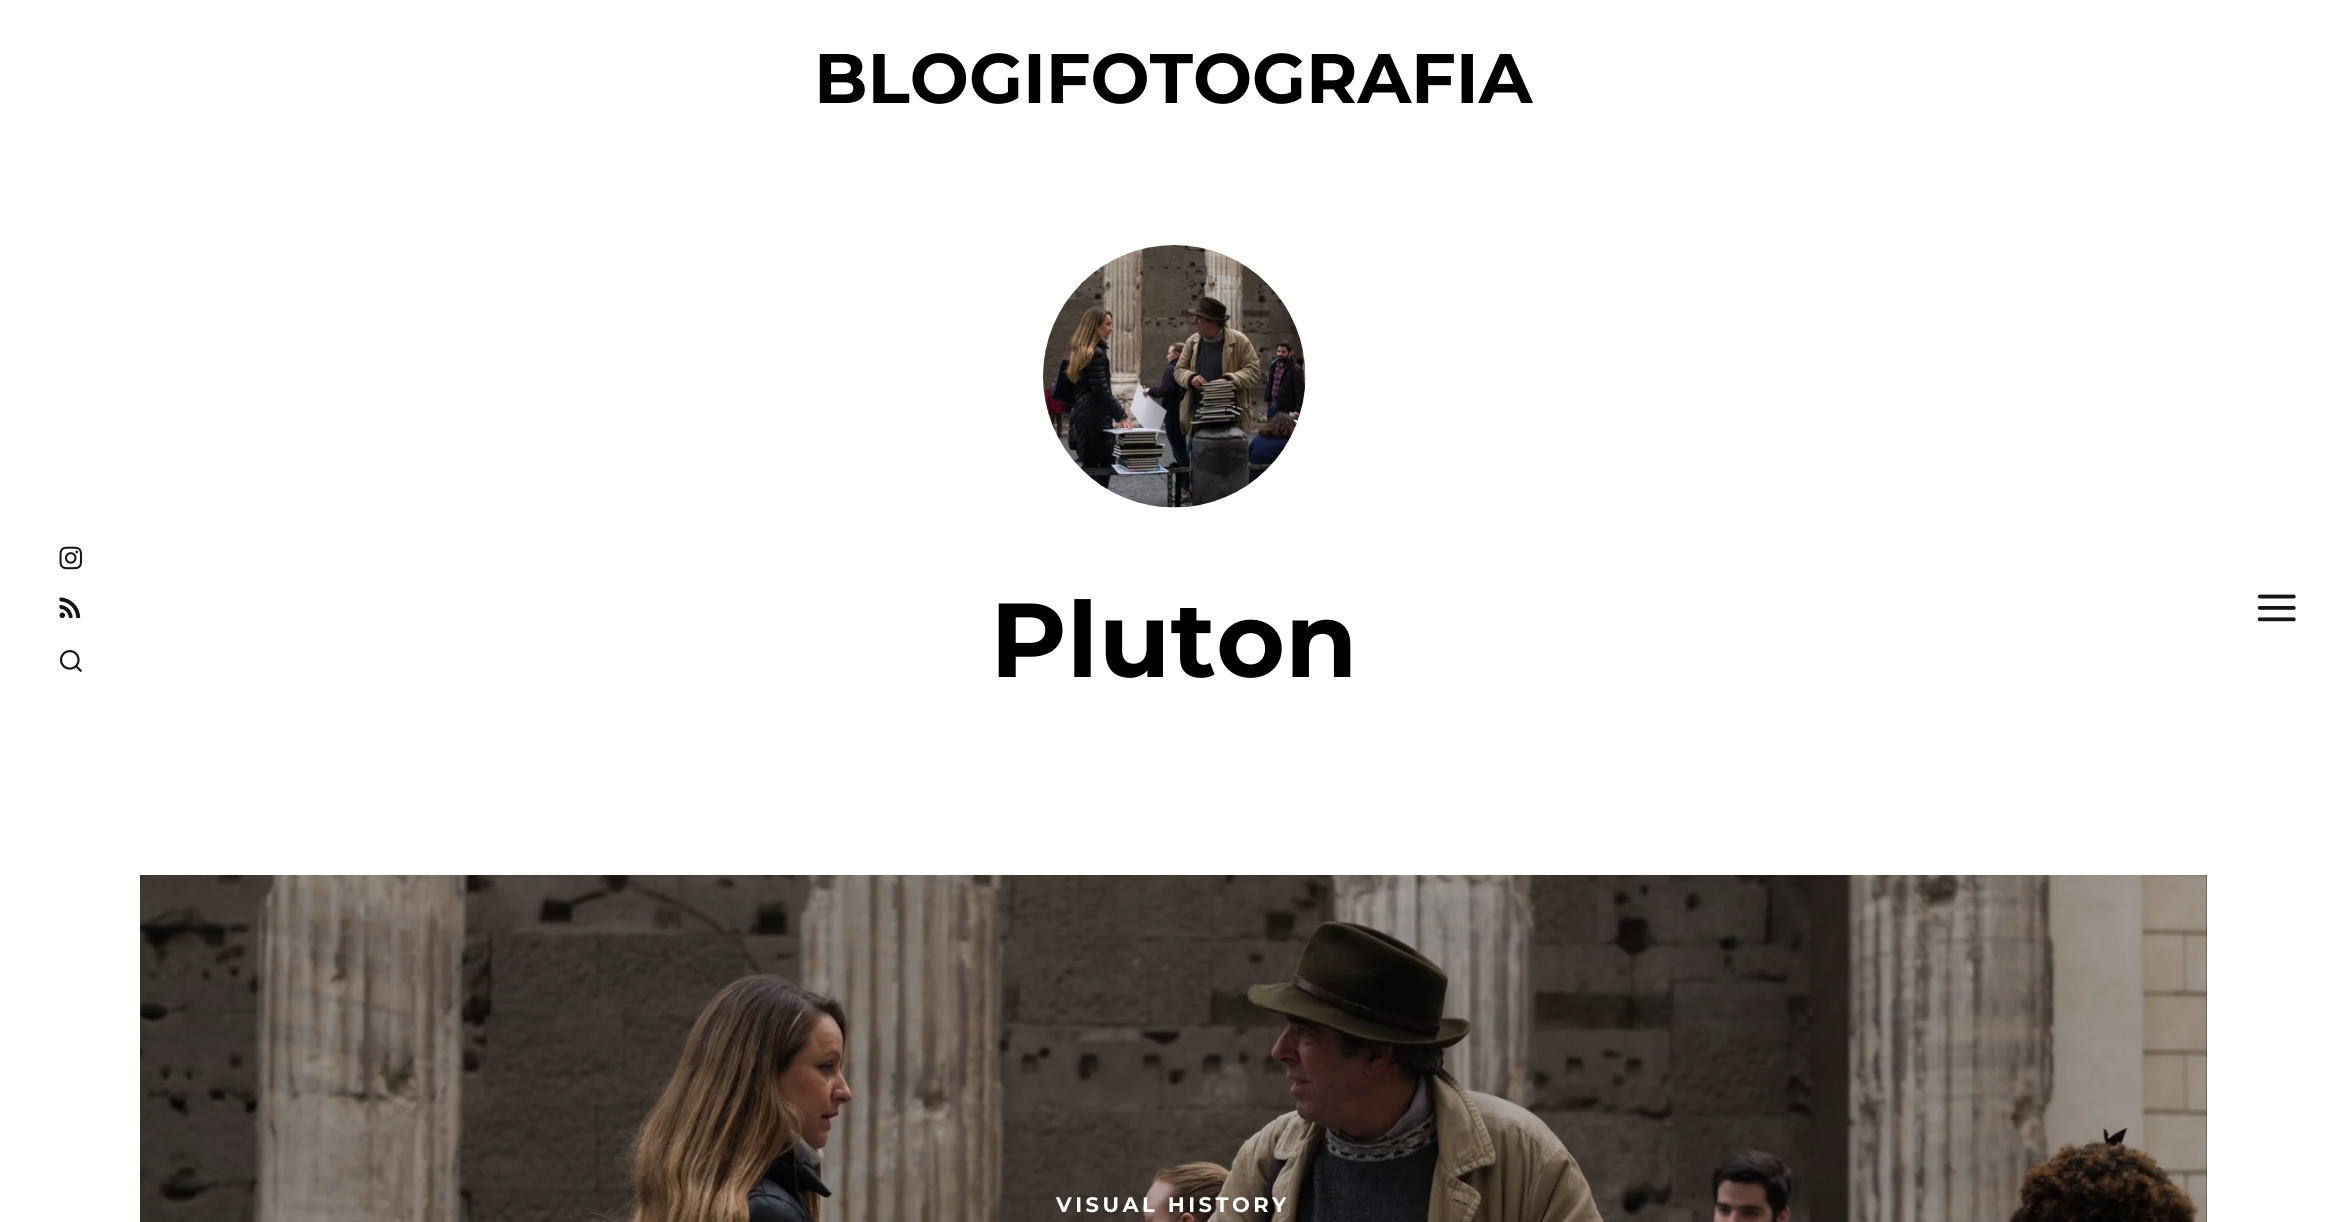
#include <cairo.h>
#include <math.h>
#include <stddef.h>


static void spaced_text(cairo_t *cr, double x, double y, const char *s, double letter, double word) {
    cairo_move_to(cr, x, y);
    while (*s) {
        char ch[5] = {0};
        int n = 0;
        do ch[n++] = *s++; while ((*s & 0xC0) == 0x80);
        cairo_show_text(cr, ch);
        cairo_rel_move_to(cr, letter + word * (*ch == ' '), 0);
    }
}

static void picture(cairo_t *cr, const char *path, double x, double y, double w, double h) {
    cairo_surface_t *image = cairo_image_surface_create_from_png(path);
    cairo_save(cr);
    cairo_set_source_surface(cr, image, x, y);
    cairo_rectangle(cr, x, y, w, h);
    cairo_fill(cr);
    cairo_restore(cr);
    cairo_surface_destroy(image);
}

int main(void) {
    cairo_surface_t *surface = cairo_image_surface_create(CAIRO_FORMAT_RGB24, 2346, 1222);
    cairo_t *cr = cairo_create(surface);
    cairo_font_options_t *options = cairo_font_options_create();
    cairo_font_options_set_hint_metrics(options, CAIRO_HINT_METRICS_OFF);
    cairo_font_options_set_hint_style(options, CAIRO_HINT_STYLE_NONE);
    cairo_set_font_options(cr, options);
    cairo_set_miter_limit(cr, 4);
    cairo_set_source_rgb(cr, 1, 1, 1);
    cairo_paint(cr);
    cairo_select_font_face(cr, "Montserrat", CAIRO_FONT_SLANT_NORMAL, CAIRO_FONT_WEIGHT_BOLD);
    cairo_set_font_size(cr, 70);
    cairo_set_source_rgb(cr, 0, 0, 0);
    cairo_move_to(cr, 814, 103);
    cairo_show_text(cr, "BLOGIFOTOGRAFIA");
    picture(cr, "img1.png", 59, 546, 23, 24);
    picture(cr, "img2.png", 59, 597, 22, 22);
    picture(cr, "img3.png", 59, 650, 23, 22);
    picture(cr, "img4.png", 1043, 245, 263, 263);
    cairo_set_font_size(cr, 105);
    cairo_move_to(cr, 990, 677);
    cairo_show_text(cr, "Pluton");
    cairo_rectangle(cr, 140, 875, 2067, 347);
    cairo_fill(cr);
    picture(cr, "img5.png", 140, 875, 2067, 347);
    cairo_set_font_size(cr, 21);
    cairo_set_source_rgb(cr, 1, 1, 1);
    spaced_text(cr, 1056, 1212, "VISUAL HISTORY", 3.5, 0);
    picture(cr, "img6.png", 2257, 594, 39, 28);
    cairo_surface_write_to_png(surface, "page.png");
    cairo_font_options_destroy(options);
    cairo_destroy(cr);
    cairo_surface_destroy(surface);
    return 0;
}
